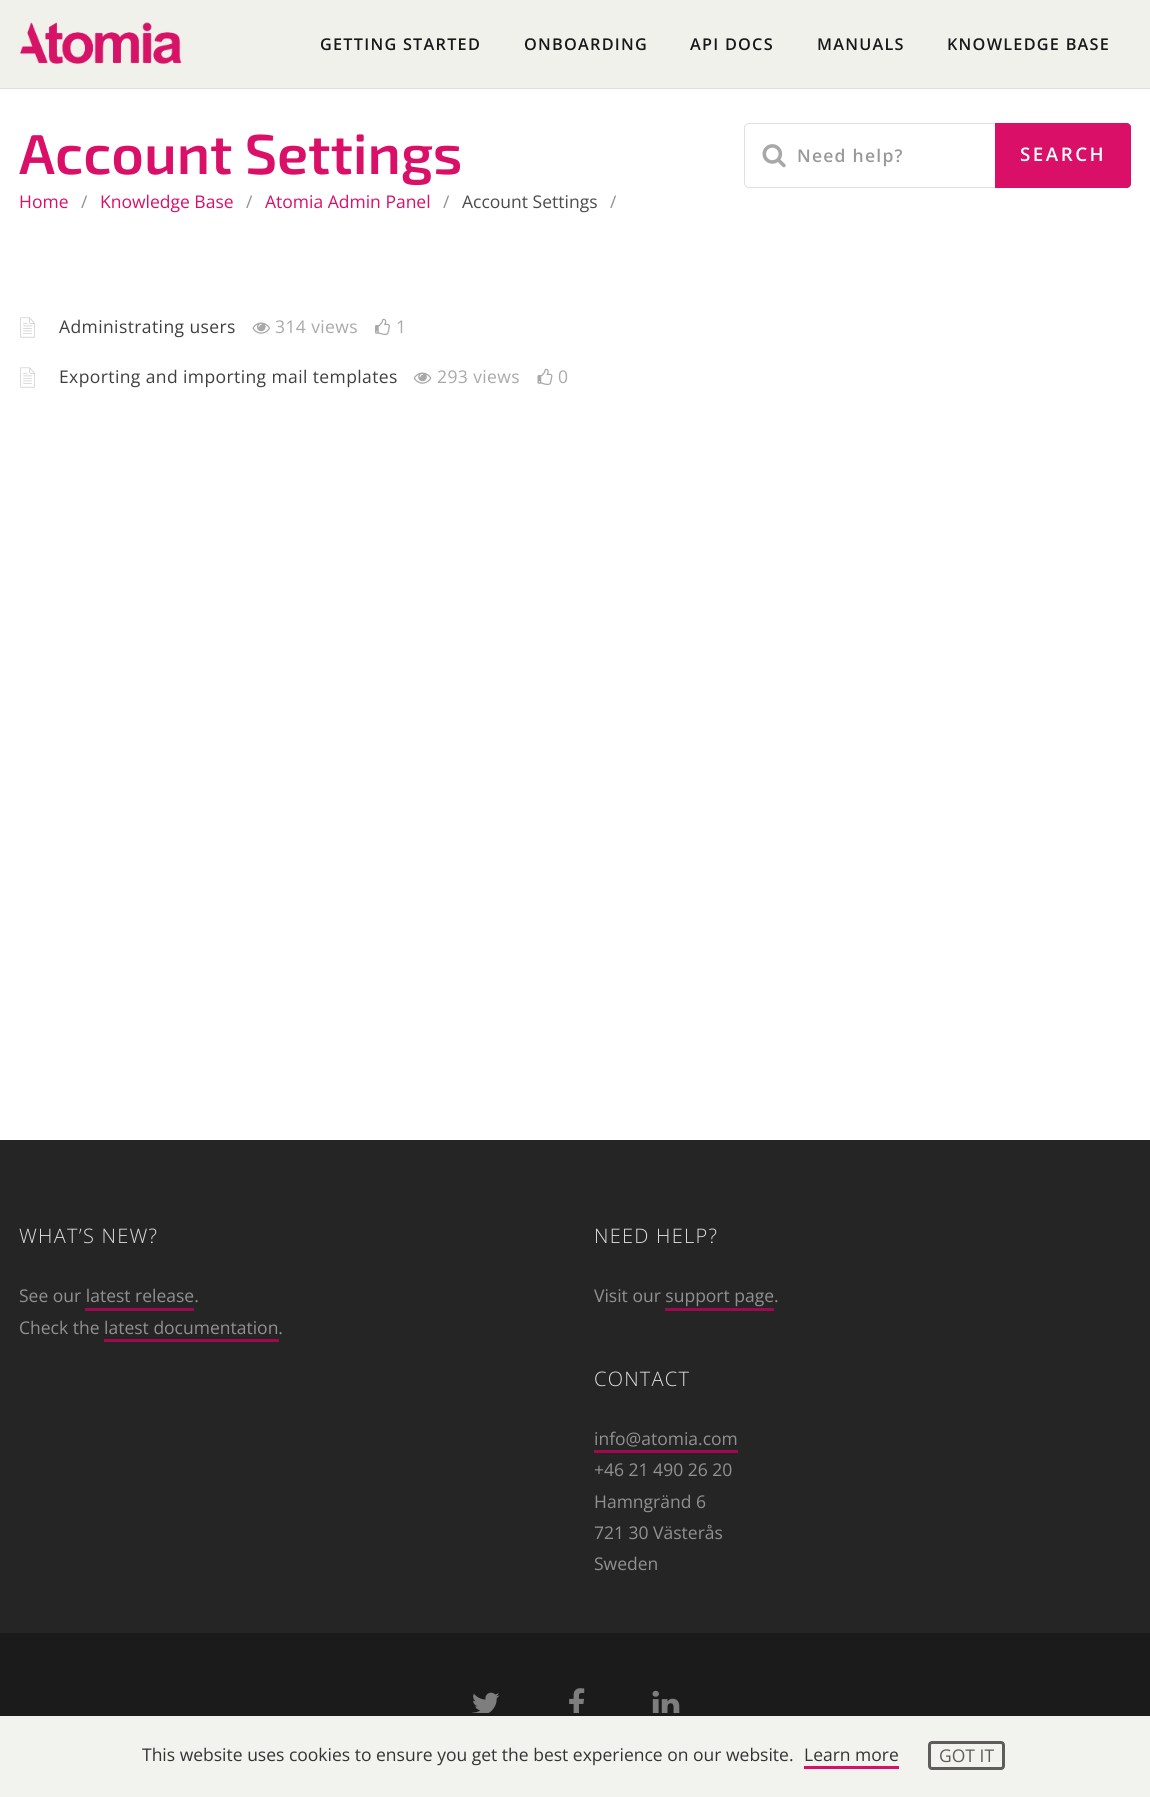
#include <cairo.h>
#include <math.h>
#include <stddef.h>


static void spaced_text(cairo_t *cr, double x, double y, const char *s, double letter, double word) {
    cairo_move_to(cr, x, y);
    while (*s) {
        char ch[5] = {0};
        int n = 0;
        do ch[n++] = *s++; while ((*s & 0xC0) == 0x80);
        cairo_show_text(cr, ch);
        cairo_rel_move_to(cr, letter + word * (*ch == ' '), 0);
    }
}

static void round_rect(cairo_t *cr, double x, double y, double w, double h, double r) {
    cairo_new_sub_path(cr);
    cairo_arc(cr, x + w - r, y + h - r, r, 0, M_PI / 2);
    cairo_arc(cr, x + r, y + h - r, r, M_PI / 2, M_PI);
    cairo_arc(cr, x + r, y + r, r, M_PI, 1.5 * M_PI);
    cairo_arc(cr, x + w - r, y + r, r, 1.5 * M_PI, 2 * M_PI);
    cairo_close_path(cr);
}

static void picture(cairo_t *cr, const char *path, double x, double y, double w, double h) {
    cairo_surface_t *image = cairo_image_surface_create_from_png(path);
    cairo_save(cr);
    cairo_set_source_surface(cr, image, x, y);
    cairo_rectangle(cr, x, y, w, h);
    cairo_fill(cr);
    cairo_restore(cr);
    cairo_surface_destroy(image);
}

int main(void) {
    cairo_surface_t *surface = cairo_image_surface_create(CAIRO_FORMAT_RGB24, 1150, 1797);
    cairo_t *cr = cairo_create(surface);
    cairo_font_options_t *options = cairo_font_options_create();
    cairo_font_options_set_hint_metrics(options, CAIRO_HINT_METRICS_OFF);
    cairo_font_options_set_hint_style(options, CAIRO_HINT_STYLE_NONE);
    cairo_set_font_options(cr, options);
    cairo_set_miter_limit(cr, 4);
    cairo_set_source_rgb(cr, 1, 1, 1);
    cairo_paint(cr);
    cairo_set_source_rgb(cr, 0.945, 0.945, 0.925);
    cairo_rectangle(cr, 0, 0, 1150, 88);
    cairo_fill(cr);
    cairo_set_source_rgb(cr, 0.875, 0.875, 0.851);
    cairo_rectangle(cr, 0, 88, 1150, 1);
    cairo_fill(cr);
    picture(cr, "img1.png", 20, 22, 162, 42);
    cairo_select_font_face(cr, "Open Sans SemiBold", CAIRO_FONT_SLANT_NORMAL, CAIRO_FONT_WEIGHT_NORMAL);
    cairo_set_font_size(cr, 16.25);
    cairo_set_source_rgb(cr, 0.094, 0.094, 0.094);
    spaced_text(cr, 320, 50, "GETTING STARTED", 1.25, 0);
    spaced_text(cr, 524, 50, "ONBOARDING", 1.25, 0);
    spaced_text(cr, 690, 50, "API DOCS", 1.25, 0);
    spaced_text(cr, 817, 50, "MANUALS", 1.25, 0);
    spaced_text(cr, 947, 50, "KNOWLEDGE BASE", 1.25, 0);
    cairo_select_font_face(cr, "Exo 2 SemiBold", CAIRO_FONT_SLANT_NORMAL, CAIRO_FONT_WEIGHT_NORMAL);
    cairo_set_font_size(cr, 56.25);
    cairo_set_source_rgb(cr, 0.855, 0.059, 0.408);
    cairo_move_to(cr, 19, 174);
    cairo_show_text(cr, "Account Settings");
    round_rect(cr, 744.5, 123.5, 386, 64, 4.5);
    cairo_set_source_rgb(cr, 0.867, 0.882, 0.882);
    cairo_set_line_width(cr, 1);
    cairo_stroke(cr);
    picture(cr, "img2.png", 762, 144, 24, 24);
    cairo_select_font_face(cr, "Open Sans SemiBold", CAIRO_FONT_SLANT_NORMAL, CAIRO_FONT_WEIGHT_NORMAL);
    cairo_set_font_size(cr, 17.5);
    cairo_set_source_rgb(cr, 0.6, 0.6, 0.6);
    spaced_text(cr, 797, 162, "Need help?", 1.25, 0);
    cairo_set_source_rgb(cr, 0.855, 0.059, 0.408);
    cairo_new_path(cr);
    cairo_move_to(cr, 995, 123);
    cairo_line_to(cr, 1127, 123);
    cairo_curve_to(cr, 1129, 123, 1131, 125, 1131, 127);
    cairo_line_to(cr, 1131, 184);
    cairo_curve_to(cr, 1131, 186, 1129, 188, 1127, 188);
    cairo_line_to(cr, 995, 188);
    cairo_close_path(cr);
    cairo_fill(cr);
    cairo_set_font_size(cr, 18.75);
    cairo_set_source_rgb(cr, 1, 1, 1);
    spaced_text(cr, 1020, 161, "SEARCH", 2.5, 0);
    cairo_select_font_face(cr, "Open Sans", CAIRO_FONT_SLANT_NORMAL, CAIRO_FONT_WEIGHT_NORMAL);
    cairo_set_font_size(cr, 17.5);
    cairo_set_source_rgb(cr, 0.855, 0.059, 0.408);
    cairo_move_to(cr, 19, 208);
    cairo_show_text(cr, "Home");
    cairo_set_source_rgb(cr, 0.569, 0.569, 0.569);
    cairo_move_to(cr, 81, 208);
    cairo_show_text(cr, "/");
    cairo_set_source_rgb(cr, 0.855, 0.059, 0.408);
    cairo_move_to(cr, 100, 208);
    cairo_show_text(cr, "Knowledge Base");
    cairo_set_source_rgb(cr, 0.569, 0.569, 0.569);
    cairo_move_to(cr, 246, 208);
    cairo_show_text(cr, "/");
    cairo_set_source_rgb(cr, 0.855, 0.059, 0.408);
    cairo_move_to(cr, 265, 208);
    cairo_show_text(cr, "Atomia Admin Panel");
    cairo_set_source_rgb(cr, 0.569, 0.569, 0.569);
    cairo_move_to(cr, 443, 208);
    cairo_show_text(cr, "/");
    cairo_set_source_rgb(cr, 0.298, 0.298, 0.298);
    cairo_move_to(cr, 462, 208);
    cairo_show_text(cr, "Account Settings");
    cairo_set_source_rgb(cr, 0.569, 0.569, 0.569);
    cairo_move_to(cr, 610, 208);
    cairo_show_text(cr, "/");
    picture(cr, "img3.png", 20, 317, 15, 21);
    cairo_set_source_rgb(cr, 0.247, 0.247, 0.247);
    spaced_text(cr, 59, 333, "Administrating users", 0.4, 0);
    picture(cr, "img4.png", 252, 322, 18, 12);
    cairo_set_source_rgb(cr, 0.663, 0.663, 0.663);
    spaced_text(cr, 275, 333, "314 views", 0.4, 0);
    picture(cr, "img5.png", 375, 318, 15, 17);
    spaced_text(cr, 396, 333, "1", 0.4, 0);
    picture(cr, "img3.png", 20, 367, 15, 21);
    cairo_set_source_rgb(cr, 0.247, 0.247, 0.247);
    spaced_text(cr, 59, 383, "Exporting and importing mail templates", 0.4, 0);
    picture(cr, "img6.png", 413, 372, 19, 12);
    cairo_set_source_rgb(cr, 0.663, 0.663, 0.663);
    spaced_text(cr, 437, 383, "293 views", 0.4, 0);
    picture(cr, "img7.png", 537, 368, 16, 17);
    spaced_text(cr, 558, 383, "0", 0.4, 0);
    cairo_set_source_rgb(cr, 0.145, 0.145, 0.145);
    cairo_rectangle(cr, 0, 1140, 1150, 493);
    cairo_fill(cr);
    cairo_select_font_face(cr, "Open Sans Light", CAIRO_FONT_SLANT_NORMAL, CAIRO_FONT_WEIGHT_NORMAL);
    cairo_set_font_size(cr, 20);
    cairo_set_source_rgb(cr, 0.867, 0.867, 0.867);
    spaced_text(cr, 19, 1243, "WHAT’S NEW?", 1.25, 0);
    cairo_select_font_face(cr, "Open Sans", CAIRO_FONT_SLANT_NORMAL, CAIRO_FONT_WEIGHT_NORMAL);
    cairo_set_font_size(cr, 17.5);
    cairo_set_source_rgb(cr, 0.569, 0.569, 0.569);
    cairo_move_to(cr, 19, 1302);
    cairo_show_text(cr, "See our latest release.");
    cairo_set_source_rgb(cr, 0.62, 0.039, 0.314);
    cairo_rectangle(cr, 85, 1308, 109, 3);
    cairo_fill(cr);
    cairo_set_source_rgb(cr, 0.569, 0.569, 0.569);
    cairo_move_to(cr, 19, 1334);
    cairo_show_text(cr, "Check the latest documentation.");
    cairo_set_source_rgb(cr, 0.62, 0.039, 0.314);
    cairo_rectangle(cr, 104, 1339, 175, 3);
    cairo_fill(cr);
    cairo_select_font_face(cr, "Open Sans Light", CAIRO_FONT_SLANT_NORMAL, CAIRO_FONT_WEIGHT_NORMAL);
    cairo_set_font_size(cr, 20);
    cairo_set_source_rgb(cr, 0.867, 0.867, 0.867);
    spaced_text(cr, 594, 1243, "NEED HELP?", 1.25, 0);
    cairo_select_font_face(cr, "Open Sans", CAIRO_FONT_SLANT_NORMAL, CAIRO_FONT_WEIGHT_NORMAL);
    cairo_set_font_size(cr, 17.5);
    cairo_set_source_rgb(cr, 0.569, 0.569, 0.569);
    cairo_move_to(cr, 594, 1302);
    cairo_show_text(cr, "Visit our support page.");
    cairo_set_source_rgb(cr, 0.62, 0.039, 0.314);
    cairo_rectangle(cr, 665, 1308, 109, 3);
    cairo_fill(cr);
    cairo_select_font_face(cr, "Open Sans Light", CAIRO_FONT_SLANT_NORMAL, CAIRO_FONT_WEIGHT_NORMAL);
    cairo_set_font_size(cr, 20);
    cairo_set_source_rgb(cr, 0.867, 0.867, 0.867);
    spaced_text(cr, 594, 1386, "CONTACT", 1.25, 0);
    cairo_select_font_face(cr, "Open Sans", CAIRO_FONT_SLANT_NORMAL, CAIRO_FONT_WEIGHT_NORMAL);
    cairo_set_font_size(cr, 17.5);
    cairo_set_source_rgb(cr, 0.569, 0.569, 0.569);
    cairo_move_to(cr, 594, 1445);
    cairo_show_text(cr, "info@atomia.com");
    cairo_set_source_rgb(cr, 0.62, 0.039, 0.314);
    cairo_rectangle(cr, 594, 1450, 144, 3);
    cairo_fill(cr);
    cairo_set_source_rgb(cr, 0.569, 0.569, 0.569);
    cairo_move_to(cr, 594, 1476);
    cairo_show_text(cr, "+46 21 490 26 20");
    cairo_move_to(cr, 594, 1508);
    cairo_show_text(cr, "Hamngränd 6");
    cairo_move_to(cr, 594, 1539);
    cairo_show_text(cr, "721 30 Västerås");
    cairo_move_to(cr, 594, 1570);
    cairo_show_text(cr, "Sweden");
    cairo_set_source_rgb(cr, 0.106, 0.106, 0.106);
    cairo_rectangle(cr, 0, 1633, 1150, 83);
    cairo_fill(cr);
    picture(cr, "img8.png", 472, 1692, 28, 21);
    picture(cr, "img9.png", 569, 1688, 16, 25);
    picture(cr, "img10.png", 652, 1690, 28, 23);
    cairo_set_source_rgb(cr, 0.949, 0.949, 0.933);
    cairo_rectangle(cr, 0, 1716, 1150, 81);
    cairo_fill(cr);
    cairo_set_source_rgb(cr, 0.2, 0.2, 0.2);
    cairo_move_to(cr, 142, 1761);
    cairo_show_text(cr, "This website uses cookies to ensure you get the best experience on our website.");
    cairo_move_to(cr, 804, 1761);
    cairo_show_text(cr, "Learn more");
    cairo_set_source_rgb(cr, 0.855, 0.059, 0.408);
    cairo_rectangle(cr, 804, 1766, 95, 3);
    cairo_fill(cr);
    round_rect(cr, 929.5, 1742.5, 74, 26, 2.5);
    cairo_set_source_rgb(cr, 0.373, 0.365, 0.361);
    cairo_set_line_width(cr, 3);
    cairo_stroke(cr);
    cairo_move_to(cr, 939, 1762);
    cairo_show_text(cr, "GOT IT");
    cairo_surface_write_to_png(surface, "page.png");
    cairo_font_options_destroy(options);
    cairo_destroy(cr);
    cairo_surface_destroy(surface);
    return 0;
}
